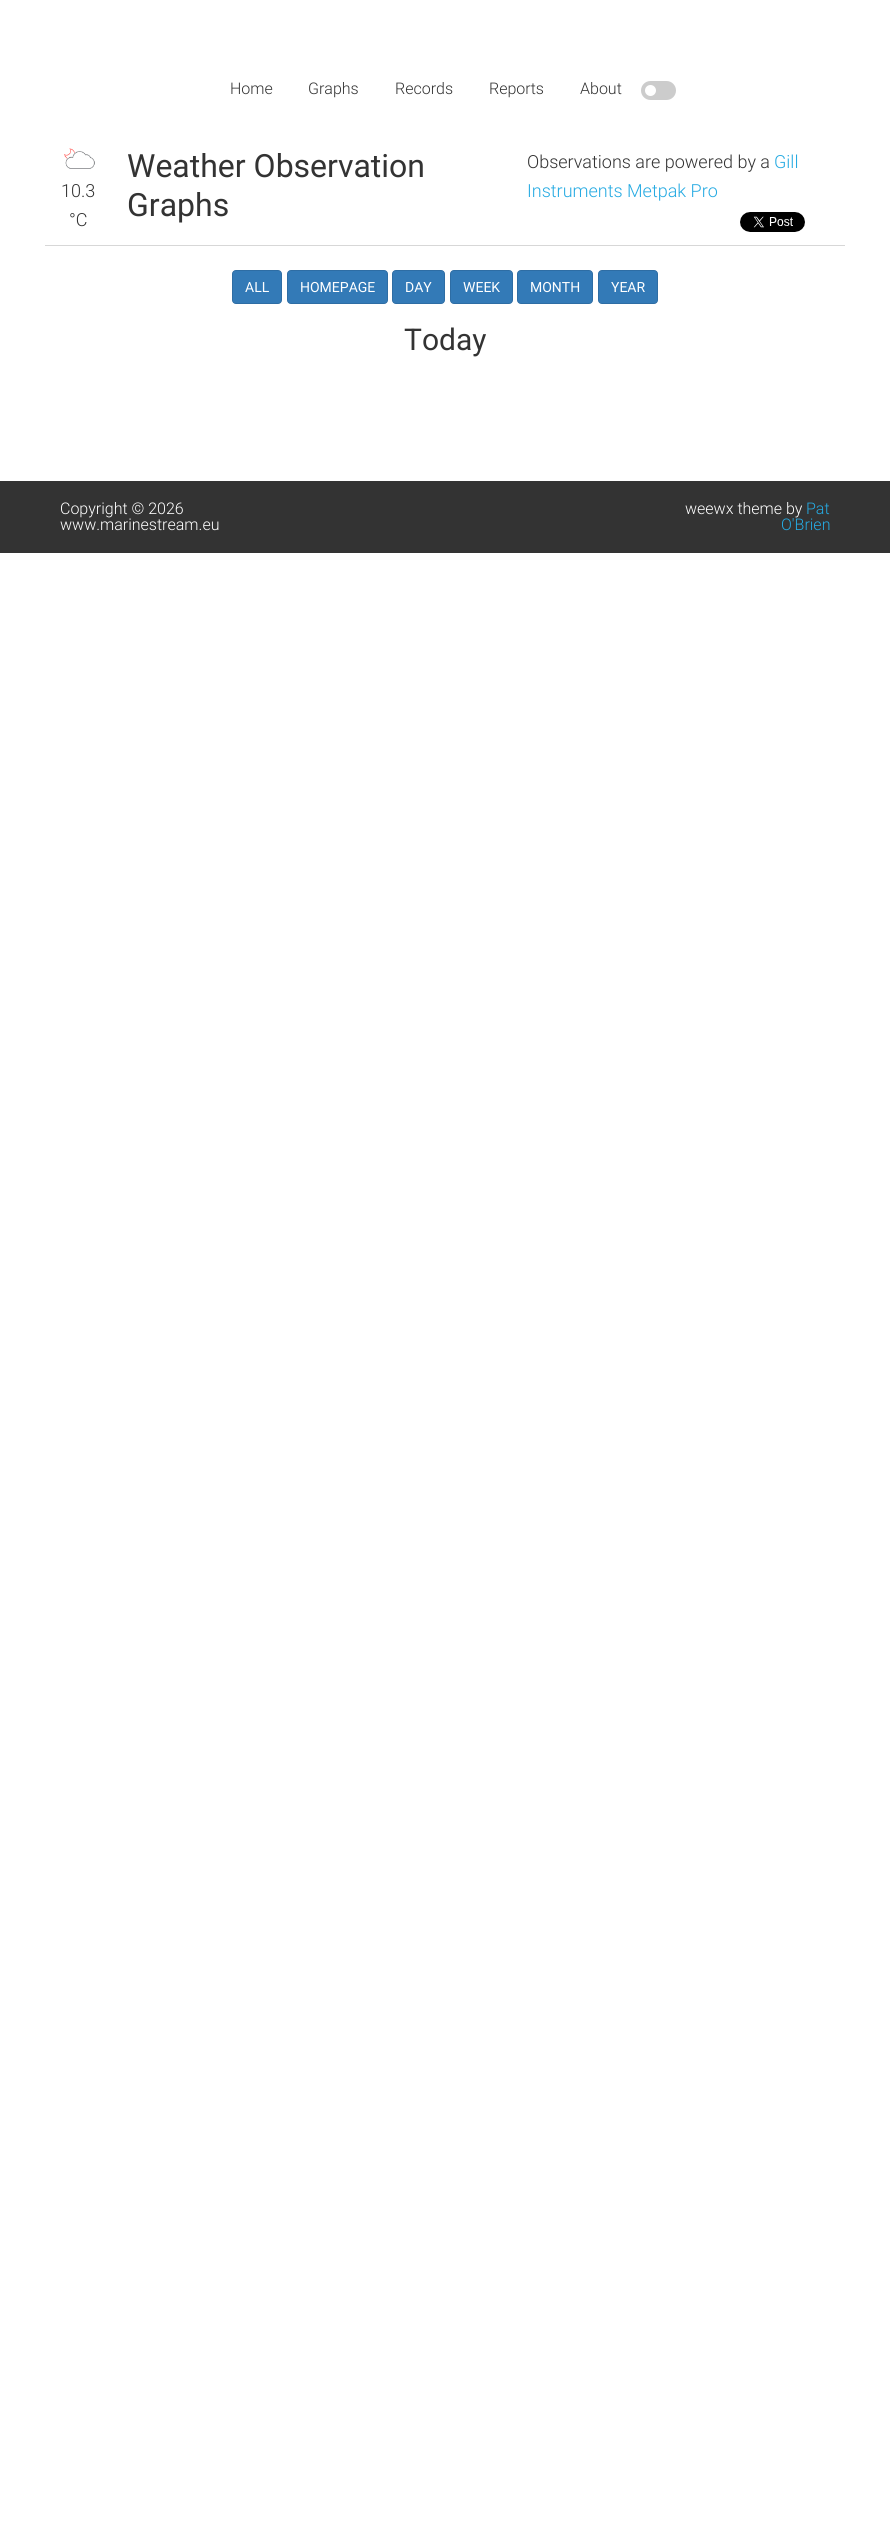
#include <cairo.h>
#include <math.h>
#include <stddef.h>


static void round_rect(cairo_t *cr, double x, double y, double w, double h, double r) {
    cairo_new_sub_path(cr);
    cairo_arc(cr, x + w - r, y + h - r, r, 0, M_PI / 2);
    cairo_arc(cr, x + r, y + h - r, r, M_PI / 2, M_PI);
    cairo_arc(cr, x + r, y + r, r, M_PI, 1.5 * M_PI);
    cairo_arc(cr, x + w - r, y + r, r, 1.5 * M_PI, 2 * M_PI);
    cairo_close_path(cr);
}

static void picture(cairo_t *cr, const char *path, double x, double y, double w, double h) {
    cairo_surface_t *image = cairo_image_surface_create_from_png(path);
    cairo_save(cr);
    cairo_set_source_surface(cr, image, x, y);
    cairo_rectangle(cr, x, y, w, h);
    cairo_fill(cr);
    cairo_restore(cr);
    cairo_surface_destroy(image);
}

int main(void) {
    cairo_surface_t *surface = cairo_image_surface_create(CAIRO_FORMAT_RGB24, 890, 2524);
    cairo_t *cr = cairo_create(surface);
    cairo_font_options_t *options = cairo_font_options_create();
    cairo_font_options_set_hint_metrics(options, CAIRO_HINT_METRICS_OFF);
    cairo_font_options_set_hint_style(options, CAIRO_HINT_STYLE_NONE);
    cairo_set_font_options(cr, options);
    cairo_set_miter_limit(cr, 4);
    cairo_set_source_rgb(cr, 1, 1, 1);
    cairo_paint(cr);
    cairo_select_font_face(cr, "Roboto Light", CAIRO_FONT_SLANT_NORMAL, CAIRO_FONT_WEIGHT_NORMAL);
    cairo_set_font_size(cr, 16);
    cairo_set_source_rgb(cr, 0.2, 0.2, 0.2);
    cairo_move_to(cr, 230, 94);
    cairo_show_text(cr, "Home");
    cairo_move_to(cr, 308, 94);
    cairo_show_text(cr, "Graphs");
    cairo_move_to(cr, 395, 94);
    cairo_show_text(cr, "Records");
    cairo_move_to(cr, 489, 94);
    cairo_show_text(cr, "Reports");
    cairo_move_to(cr, 580, 94);
    cairo_show_text(cr, "About");
    cairo_set_source_rgb(cr, 0.8, 0.8, 0.8);
    round_rect(cr, 641, 81, 35, 19, 9.5);
    cairo_fill(cr);
    cairo_set_source_rgb(cr, 1, 1, 1);
    cairo_arc(cr, 650.5, 90.5, 5.5, 0, 2 * M_PI);
    cairo_fill(cr);
    cairo_set_source_rgb(cr, 0.843, 0.843, 0.843);
    cairo_rectangle(cr, 45, 245, 800, 1);
    cairo_fill(cr);
    cairo_select_font_face(cr, "Roboto", CAIRO_FONT_SLANT_NORMAL, CAIRO_FONT_WEIGHT_NORMAL);
    cairo_set_font_size(cr, 32);
    cairo_set_source_rgb(cr, 0.2, 0.2, 0.2);
    cairo_move_to(cr, 127, 177);
    cairo_show_text(cr, "Weather Observation");
    cairo_move_to(cr, 127, 216);
    cairo_show_text(cr, "Graphs");
    cairo_select_font_face(cr, "Roboto Light", CAIRO_FONT_SLANT_NORMAL, CAIRO_FONT_WEIGHT_NORMAL);
    cairo_set_font_size(cr, 18);
    cairo_move_to(cr, 527, 168);
    cairo_show_text(cr, "Observations are powered by a");
    cairo_set_source_rgb(cr, 0.145, 0.667, 0.886);
    cairo_move_to(cr, 774, 168);
    cairo_show_text(cr, "Gill");
    cairo_move_to(cr, 527, 197);
    cairo_show_text(cr, "Instruments Metpak Pro");
    picture(cr, "img1.png", 740, 212, 65, 20);
    picture(cr, "img2.png", 64, 148, 31, 21);
    cairo_set_source_rgb(cr, 0.2, 0.2, 0.2);
    cairo_move_to(cr, 61, 197);
    cairo_show_text(cr, "10.3");
    cairo_move_to(cr, 69, 226);
    cairo_show_text(cr, "°C");
    cairo_set_source_rgb(cr, 0.2, 0.478, 0.718);
    round_rect(cr, 232.5, 270.5, 49, 33, 3.5);
    cairo_fill_preserve(cr);
    cairo_set_source_rgb(cr, 0.18, 0.427, 0.643);
    cairo_set_line_width(cr, 1);
    cairo_stroke(cr);
    cairo_select_font_face(cr, "Roboto", CAIRO_FONT_SLANT_NORMAL, CAIRO_FONT_WEIGHT_NORMAL);
    cairo_set_font_size(cr, 14);
    cairo_set_source_rgb(cr, 1, 1, 1);
    cairo_move_to(cr, 245, 292);
    cairo_show_text(cr, "ALL");
    cairo_set_source_rgb(cr, 0.2, 0.478, 0.718);
    round_rect(cr, 287.5, 270.5, 100, 33, 3.5);
    cairo_fill_preserve(cr);
    cairo_set_source_rgb(cr, 0.18, 0.427, 0.643);
    cairo_stroke(cr);
    cairo_set_source_rgb(cr, 1, 1, 1);
    cairo_move_to(cr, 300, 292);
    cairo_show_text(cr, "HOMEPAGE");
    cairo_set_source_rgb(cr, 0.2, 0.478, 0.718);
    round_rect(cr, 392.5, 270.5, 52, 33, 3.5);
    cairo_fill_preserve(cr);
    cairo_set_source_rgb(cr, 0.18, 0.427, 0.643);
    cairo_stroke(cr);
    cairo_set_source_rgb(cr, 1, 1, 1);
    cairo_move_to(cr, 405, 292);
    cairo_show_text(cr, "DAY");
    cairo_set_source_rgb(cr, 0.2, 0.478, 0.718);
    round_rect(cr, 450.5, 270.5, 62, 33, 3.5);
    cairo_fill_preserve(cr);
    cairo_set_source_rgb(cr, 0.18, 0.427, 0.643);
    cairo_stroke(cr);
    cairo_set_source_rgb(cr, 1, 1, 1);
    cairo_move_to(cr, 463, 292);
    cairo_show_text(cr, "WEEK");
    cairo_set_source_rgb(cr, 0.2, 0.478, 0.718);
    round_rect(cr, 517.5, 270.5, 75, 33, 3.5);
    cairo_fill_preserve(cr);
    cairo_set_source_rgb(cr, 0.18, 0.427, 0.643);
    cairo_stroke(cr);
    cairo_set_source_rgb(cr, 1, 1, 1);
    cairo_move_to(cr, 530, 292);
    cairo_show_text(cr, "MONTH");
    cairo_set_source_rgb(cr, 0.2, 0.478, 0.718);
    round_rect(cr, 598.5, 270.5, 59, 33, 3.5);
    cairo_fill_preserve(cr);
    cairo_set_source_rgb(cr, 0.18, 0.427, 0.643);
    cairo_stroke(cr);
    cairo_set_source_rgb(cr, 1, 1, 1);
    cairo_move_to(cr, 611, 292);
    cairo_show_text(cr, "YEAR");
    cairo_set_font_size(cr, 30);
    cairo_set_source_rgb(cr, 0.2, 0.2, 0.2);
    cairo_move_to(cr, 404, 350);
    cairo_show_text(cr, "Today");
    cairo_rectangle(cr, 0, 481, 890, 72);
    cairo_fill(cr);
    cairo_select_font_face(cr, "Roboto Light", CAIRO_FONT_SLANT_NORMAL, CAIRO_FONT_WEIGHT_NORMAL);
    cairo_set_font_size(cr, 16);
    cairo_set_source_rgb(cr, 1, 1, 1);
    cairo_move_to(cr, 60, 514);
    cairo_show_text(cr, "Copyright © 2026");
    cairo_move_to(cr, 60, 530);
    cairo_show_text(cr, "www.marinestream.eu");
    cairo_move_to(cr, 685, 514);
    cairo_show_text(cr, "weewx theme by");
    cairo_set_source_rgb(cr, 0.145, 0.667, 0.886);
    cairo_move_to(cr, 806, 514);
    cairo_show_text(cr, "Pat");
    cairo_move_to(cr, 781, 530);
    cairo_show_text(cr, "O'Brien");
    cairo_surface_write_to_png(surface, "page.png");
    cairo_font_options_destroy(options);
    cairo_destroy(cr);
    cairo_surface_destroy(surface);
    return 0;
}
